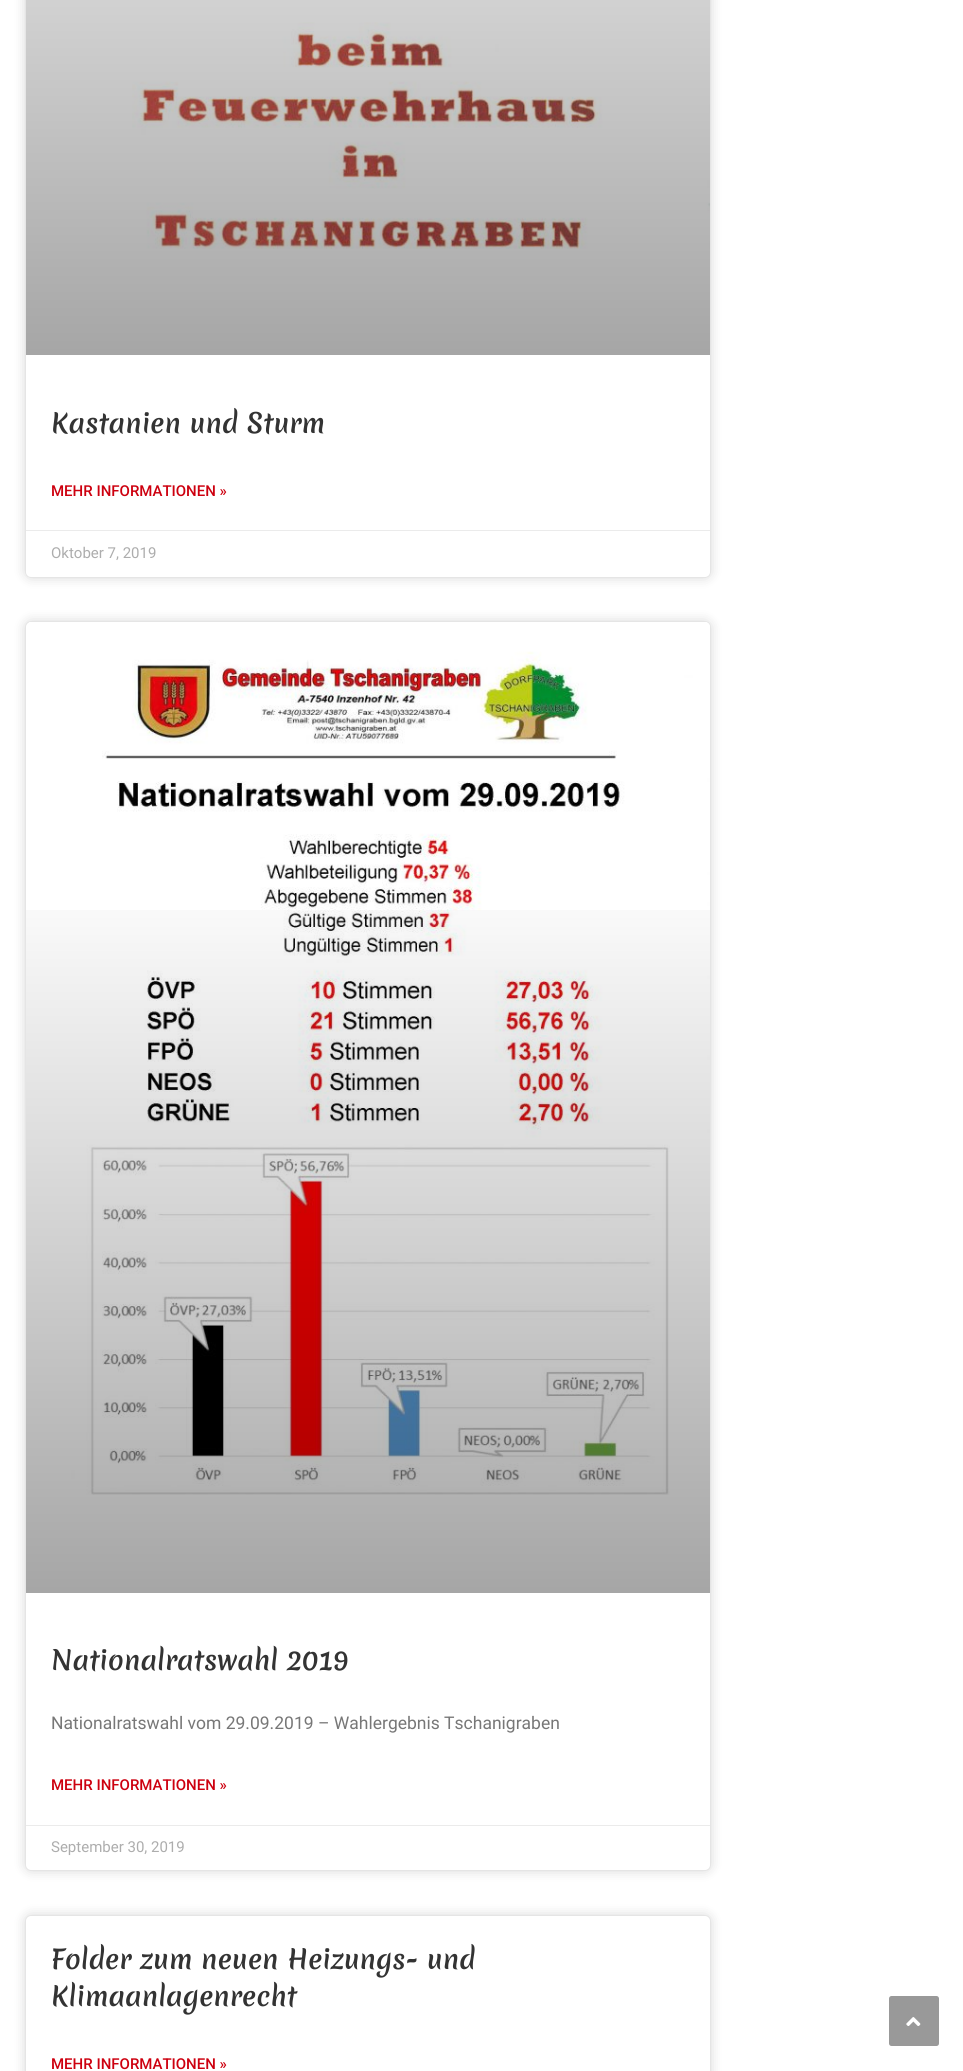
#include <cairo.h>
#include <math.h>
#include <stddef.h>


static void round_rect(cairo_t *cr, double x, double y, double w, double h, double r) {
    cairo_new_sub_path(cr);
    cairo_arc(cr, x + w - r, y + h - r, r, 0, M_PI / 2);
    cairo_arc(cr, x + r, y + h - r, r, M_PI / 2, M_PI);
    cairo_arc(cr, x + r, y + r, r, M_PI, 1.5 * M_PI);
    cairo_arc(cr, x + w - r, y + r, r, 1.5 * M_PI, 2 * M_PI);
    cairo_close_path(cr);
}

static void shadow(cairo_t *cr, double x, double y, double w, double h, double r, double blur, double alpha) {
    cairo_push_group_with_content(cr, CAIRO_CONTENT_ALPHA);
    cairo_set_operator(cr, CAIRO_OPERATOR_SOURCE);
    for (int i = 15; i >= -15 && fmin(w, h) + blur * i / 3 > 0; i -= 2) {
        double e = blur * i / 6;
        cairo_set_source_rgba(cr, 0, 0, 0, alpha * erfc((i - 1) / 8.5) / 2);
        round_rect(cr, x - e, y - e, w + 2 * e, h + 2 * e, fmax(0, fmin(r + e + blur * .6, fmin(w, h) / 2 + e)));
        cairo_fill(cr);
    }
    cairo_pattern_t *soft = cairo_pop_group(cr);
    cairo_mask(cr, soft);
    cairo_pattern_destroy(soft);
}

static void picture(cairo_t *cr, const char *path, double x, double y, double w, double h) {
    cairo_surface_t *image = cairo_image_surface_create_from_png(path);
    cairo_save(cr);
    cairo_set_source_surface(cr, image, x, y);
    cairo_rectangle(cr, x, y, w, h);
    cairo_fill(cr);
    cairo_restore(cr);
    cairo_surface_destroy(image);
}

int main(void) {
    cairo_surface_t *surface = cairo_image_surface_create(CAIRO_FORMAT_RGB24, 963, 2071);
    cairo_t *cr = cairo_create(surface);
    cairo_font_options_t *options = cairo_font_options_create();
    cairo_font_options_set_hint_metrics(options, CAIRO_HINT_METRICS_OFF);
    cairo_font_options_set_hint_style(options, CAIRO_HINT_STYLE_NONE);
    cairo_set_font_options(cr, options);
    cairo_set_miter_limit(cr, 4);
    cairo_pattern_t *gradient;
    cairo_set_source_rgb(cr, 1, 1, 1);
    cairo_paint(cr);
    cairo_set_source_rgb(cr, 0, 0, 0);
    shadow(cr, 25, -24, 686, 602, 6, 6, 0.15);
    cairo_set_source_rgb(cr, 1, 1, 1);
    round_rect(cr, 25, -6, 686, 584, 6);
    cairo_fill(cr);
    round_rect(cr, 25.5, -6.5, 685, 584, 5.5);
    cairo_set_source_rgba(cr, 0.8, 0.8, 0.8, 0.5);
    cairo_set_line_width(cr, 1);
    cairo_stroke(cr);
    picture(cr, "img1.png", 132, 22, 578, 227);
    gradient = cairo_pattern_create_linear(368, 355, 368, -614);
    cairo_pattern_add_color_stop_rgba(gradient, 0, 0, 0, 0, 0.35);
    cairo_pattern_add_color_stop_rgba(gradient, 0.75, 0, 0, 0, 0);
    cairo_set_source(cr, gradient);
    cairo_pattern_destroy(gradient);
    cairo_rectangle(cr, 26, 0, 684, 355);
    cairo_fill(cr);
    cairo_select_font_face(cr, "Merienda SemiBold", CAIRO_FONT_SLANT_NORMAL, CAIRO_FONT_WEIGHT_NORMAL);
    cairo_set_font_size(cr, 26.25);
    cairo_set_source_rgb(cr, 0.2, 0.2, 0.2);
    cairo_move_to(cr, 51, 433);
    cairo_show_text(cr, "Kastanien und Sturm");
    cairo_select_font_face(cr, "Roboto Medium", CAIRO_FONT_SLANT_NORMAL, CAIRO_FONT_WEIGHT_NORMAL);
    cairo_set_font_size(cr, 15);
    cairo_set_source_rgb(cr, 0.804, 0, 0.059);
    cairo_move_to(cr, 51, 496);
    cairo_show_text(cr, "MEHR INFORMATIONEN »");
    cairo_set_source_rgb(cr, 0.918, 0.918, 0.918);
    cairo_rectangle(cr, 26, 530, 684, 1);
    cairo_fill(cr);
    cairo_select_font_face(cr, "Roboto", CAIRO_FONT_SLANT_NORMAL, CAIRO_FONT_WEIGHT_NORMAL);
    cairo_set_source_rgb(cr, 0.678, 0.678, 0.678);
    cairo_move_to(cr, 51, 558);
    cairo_show_text(cr, "Oktober 7, 2019");
    cairo_set_source_rgb(cr, 0, 0, 0);
    shadow(cr, 25, 621, 686, 1250, 6, 6, 0.15);
    cairo_set_source_rgb(cr, 1, 1, 1);
    round_rect(cr, 25.5, 621.5, 685, 1249, 5.5);
    cairo_fill_preserve(cr);
    cairo_set_source_rgb(cr, 0.898, 0.898, 0.898);
    cairo_stroke(cr);
    picture(cr, "img2.png", 29, 622, 681, 873);
    gradient = cairo_pattern_create_linear(368, 1593, 368, 623);
    cairo_pattern_add_color_stop_rgba(gradient, 0, 0, 0, 0, 0.35);
    cairo_pattern_add_color_stop_rgba(gradient, 0.75, 0, 0, 0, 0);
    cairo_set_source(cr, gradient);
    cairo_pattern_destroy(gradient);
    cairo_rectangle(cr, 26, 910, 684, 683);
    cairo_fill(cr);
    cairo_select_font_face(cr, "Merienda SemiBold", CAIRO_FONT_SLANT_NORMAL, CAIRO_FONT_WEIGHT_NORMAL);
    cairo_set_font_size(cr, 26.25);
    cairo_set_source_rgb(cr, 0.2, 0.2, 0.2);
    cairo_move_to(cr, 51, 1670);
    cairo_show_text(cr, "Nationalratswahl 2019");
    cairo_select_font_face(cr, "Roboto", CAIRO_FONT_SLANT_NORMAL, CAIRO_FONT_WEIGHT_NORMAL);
    cairo_set_font_size(cr, 17.5);
    cairo_set_source_rgb(cr, 0.467, 0.467, 0.467);
    cairo_move_to(cr, 51, 1729);
    cairo_show_text(cr, "Nationalratswahl vom 29.09.2019 – Wahlergebnis Tschanigraben");
    cairo_select_font_face(cr, "Roboto Medium", CAIRO_FONT_SLANT_NORMAL, CAIRO_FONT_WEIGHT_NORMAL);
    cairo_set_font_size(cr, 15);
    cairo_set_source_rgb(cr, 0.804, 0, 0.059);
    cairo_move_to(cr, 51, 1790);
    cairo_show_text(cr, "MEHR INFORMATIONEN »");
    cairo_set_source_rgb(cr, 0.918, 0.918, 0.918);
    cairo_rectangle(cr, 26, 1825, 684, 1);
    cairo_fill(cr);
    cairo_select_font_face(cr, "Roboto", CAIRO_FONT_SLANT_NORMAL, CAIRO_FONT_WEIGHT_NORMAL);
    cairo_set_source_rgb(cr, 0.678, 0.678, 0.678);
    cairo_move_to(cr, 51, 1852);
    cairo_show_text(cr, "September 30, 2019");
    cairo_set_source_rgb(cr, 0, 0, 0);
    shadow(cr, 25, 1915, 686, 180, 6, 6, 0.15);
    cairo_set_source_rgb(cr, 1, 1, 1);
    round_rect(cr, 25.5, 1915.5, 685, 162, 5.5);
    cairo_fill_preserve(cr);
    cairo_set_source_rgb(cr, 0.898, 0.898, 0.898);
    cairo_stroke(cr);
    cairo_select_font_face(cr, "Merienda SemiBold", CAIRO_FONT_SLANT_NORMAL, CAIRO_FONT_WEIGHT_NORMAL);
    cairo_set_font_size(cr, 26.25);
    cairo_set_source_rgb(cr, 0.2, 0.2, 0.2);
    cairo_move_to(cr, 51, 1969);
    cairo_show_text(cr, "Folder zum neuen Heizungs- und");
    cairo_move_to(cr, 51, 2006);
    cairo_show_text(cr, "Klimaanlagenrecht");
    cairo_select_font_face(cr, "Roboto Medium", CAIRO_FONT_SLANT_NORMAL, CAIRO_FONT_WEIGHT_NORMAL);
    cairo_set_font_size(cr, 15);
    cairo_set_source_rgb(cr, 0.804, 0, 0.059);
    cairo_move_to(cr, 51, 2069);
    cairo_show_text(cr, "MEHR INFORMATIONEN »");
    cairo_set_source_rgb(cr, 0.6, 0.6, 0.6);
    round_rect(cr, 889, 1996, 50, 50, 2.5);
    cairo_fill(cr);
    picture(cr, "img3.png", 906, 2017, 15, 9);
    cairo_surface_write_to_png(surface, "page.png");
    cairo_font_options_destroy(options);
    cairo_destroy(cr);
    cairo_surface_destroy(surface);
    return 0;
}
